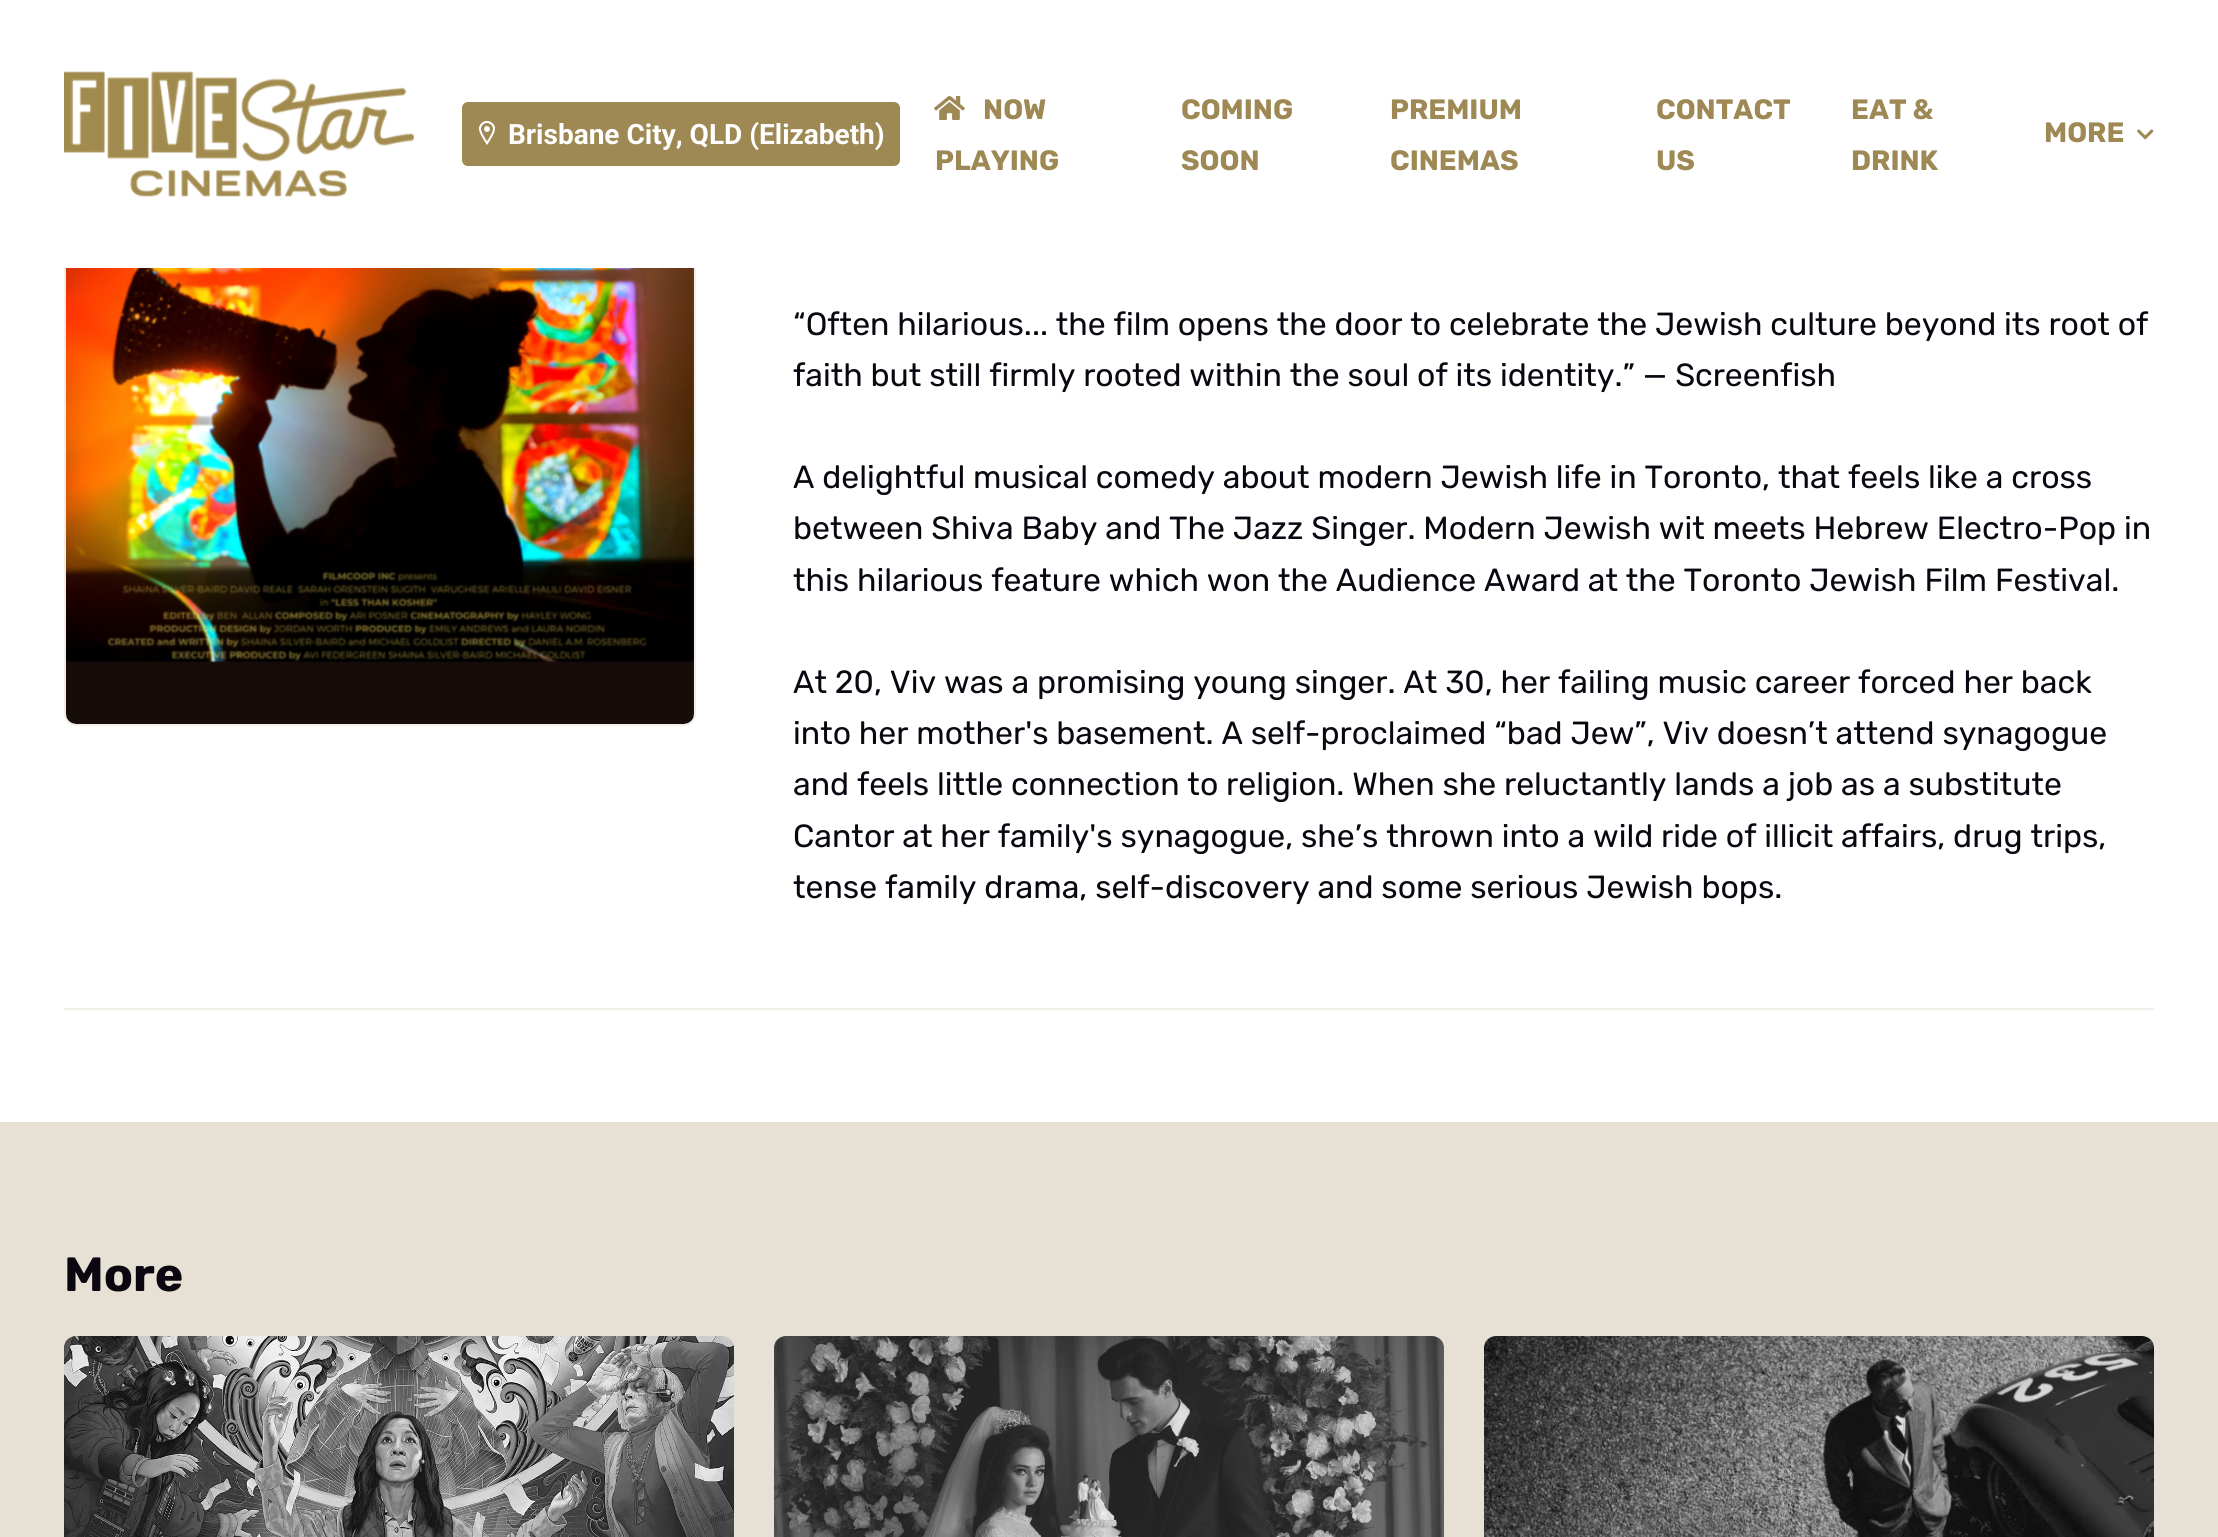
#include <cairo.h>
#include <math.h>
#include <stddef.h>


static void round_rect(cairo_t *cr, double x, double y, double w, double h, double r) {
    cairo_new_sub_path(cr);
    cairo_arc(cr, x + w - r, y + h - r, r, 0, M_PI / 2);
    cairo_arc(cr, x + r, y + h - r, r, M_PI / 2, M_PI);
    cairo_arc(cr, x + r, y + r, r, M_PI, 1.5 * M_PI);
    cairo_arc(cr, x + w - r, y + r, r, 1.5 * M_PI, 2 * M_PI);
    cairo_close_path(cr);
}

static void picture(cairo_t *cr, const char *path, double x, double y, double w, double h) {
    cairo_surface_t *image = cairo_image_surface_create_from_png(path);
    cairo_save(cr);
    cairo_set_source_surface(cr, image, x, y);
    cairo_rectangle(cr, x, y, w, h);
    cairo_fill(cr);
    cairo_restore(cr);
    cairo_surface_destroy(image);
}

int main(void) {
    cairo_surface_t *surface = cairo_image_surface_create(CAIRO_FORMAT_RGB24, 2218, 1537);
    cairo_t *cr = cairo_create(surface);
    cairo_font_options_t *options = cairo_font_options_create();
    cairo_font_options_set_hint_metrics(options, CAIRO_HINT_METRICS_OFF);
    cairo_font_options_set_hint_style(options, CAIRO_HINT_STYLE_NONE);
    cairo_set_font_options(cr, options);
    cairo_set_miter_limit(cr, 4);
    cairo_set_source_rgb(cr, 1, 1, 1);
    cairo_paint(cr);
    round_rect(cr, 65, -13, 630, 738, 11);
    cairo_set_source_rgb(cr, 0.953, 0.937, 0.91);
    cairo_stroke(cr);
    cairo_set_source_rgb(cr, 1, 1, 1);
    cairo_rectangle(cr, 64, 0, 632, 268);
    cairo_fill(cr);
    picture(cr, "img1.png", 64, 71, 350, 126);
    cairo_set_source_rgb(cr, 0.62, 0.537, 0.333);
    round_rect(cr, 462, 102, 438, 64, 6);
    cairo_fill(cr);
    picture(cr, "img2.png", 479, 121, 16, 24);
    cairo_select_font_face(cr, "Roboto", CAIRO_FONT_SLANT_NORMAL, CAIRO_FONT_WEIGHT_BOLD);
    cairo_set_font_size(cr, 28);
    cairo_set_source_rgb(cr, 1, 1, 1);
    cairo_move_to(cr, 508, 144);
    cairo_show_text(cr, "Brisbane City, QLD (Elizabeth)");
    picture(cr, "img3.png", 934, 96, 31, 24);
    cairo_select_font_face(cr, "Rubik", CAIRO_FONT_SLANT_NORMAL, CAIRO_FONT_WEIGHT_BOLD);
    cairo_set_source_rgb(cr, 0.62, 0.537, 0.333);
    cairo_move_to(cr, 983, 119);
    cairo_show_text(cr, "NOW");
    cairo_move_to(cr, 935, 170);
    cairo_show_text(cr, "PLAYING");
    cairo_move_to(cr, 1181, 119);
    cairo_show_text(cr, "COMING");
    cairo_move_to(cr, 1181, 170);
    cairo_show_text(cr, "SOON");
    cairo_move_to(cr, 1390, 119);
    cairo_show_text(cr, "PREMIUM");
    cairo_move_to(cr, 1390, 170);
    cairo_show_text(cr, "CINEMAS");
    cairo_move_to(cr, 1656, 119);
    cairo_show_text(cr, "CONTACT");
    cairo_move_to(cr, 1656, 170);
    cairo_show_text(cr, "US");
    cairo_move_to(cr, 1851, 119);
    cairo_show_text(cr, "EAT &");
    cairo_move_to(cr, 1851, 170);
    cairo_show_text(cr, "DRINK");
    cairo_move_to(cr, 2044, 142);
    cairo_show_text(cr, "MORE");
    picture(cr, "img4.png", 2137, 129, 17, 11);
    picture(cr, "img5.png", 66, 268, 628, 456);
    cairo_select_font_face(cr, "Rubik", CAIRO_FONT_SLANT_NORMAL, CAIRO_FONT_WEIGHT_NORMAL);
    cairo_set_font_size(cr, 32);
    cairo_set_source_rgb(cr, 0.043, 0.031, 0.063);
    cairo_move_to(cr, 793, 335);
    cairo_show_text(cr, "“Often hilarious... the film opens the door to celebrate the Jewish culture beyond its root of");
    cairo_move_to(cr, 793, 386);
    cairo_show_text(cr, "faith but still firmly rooted within the soul of its identity.” — Screenfish");
    cairo_move_to(cr, 793, 488);
    cairo_show_text(cr, "A delightful musical comedy about modern Jewish life in Toronto, that feels like a cross");
    cairo_move_to(cr, 793, 539);
    cairo_show_text(cr, "between Shiva Baby and The Jazz Singer. Modern Jewish wit meets Hebrew Electro-Pop in");
    cairo_move_to(cr, 793, 591);
    cairo_show_text(cr, "this hilarious feature which won the Audience Award at the Toronto Jewish Film Festival.");
    cairo_move_to(cr, 793, 693);
    cairo_show_text(cr, "At 20, Viv was a promising young singer. At 30, her failing music career forced her back");
    cairo_move_to(cr, 793, 744);
    cairo_show_text(cr, "into her mother's basement. A self-proclaimed “bad Jew”, Viv doesn’t attend synagogue");
    cairo_move_to(cr, 793, 795);
    cairo_show_text(cr, "and feels little connection to religion. When she reluctantly lands a job as a substitute");
    cairo_move_to(cr, 793, 847);
    cairo_show_text(cr, "Cantor at her family's synagogue, she’s thrown into a wild ride of illicit affairs, drug trips,");
    cairo_move_to(cr, 793, 898);
    cairo_show_text(cr, "tense family drama, self-discovery and some serious Jewish bops.");
    cairo_set_source_rgb(cr, 0.953, 0.937, 0.91);
    cairo_rectangle(cr, 64, 1008, 2090, 2);
    cairo_fill(cr);
    cairo_set_source_rgb(cr, 0.906, 0.882, 0.835);
    cairo_rectangle(cr, 0, 1122, 2218, 415);
    cairo_fill(cr);
    cairo_select_font_face(cr, "Rubik", CAIRO_FONT_SLANT_NORMAL, CAIRO_FONT_WEIGHT_BOLD);
    cairo_set_font_size(cr, 48);
    cairo_set_source_rgb(cr, 0.043, 0.031, 0.063);
    cairo_move_to(cr, 64, 1291);
    cairo_show_text(cr, "More");
    picture(cr, "img6.png", 64, 1336, 670, 201);
    picture(cr, "img7.png", 774, 1336, 670, 201);
    picture(cr, "img8.png", 1484, 1336, 670, 201);
    cairo_surface_write_to_png(surface, "page.png");
    cairo_font_options_destroy(options);
    cairo_destroy(cr);
    cairo_surface_destroy(surface);
    return 0;
}
